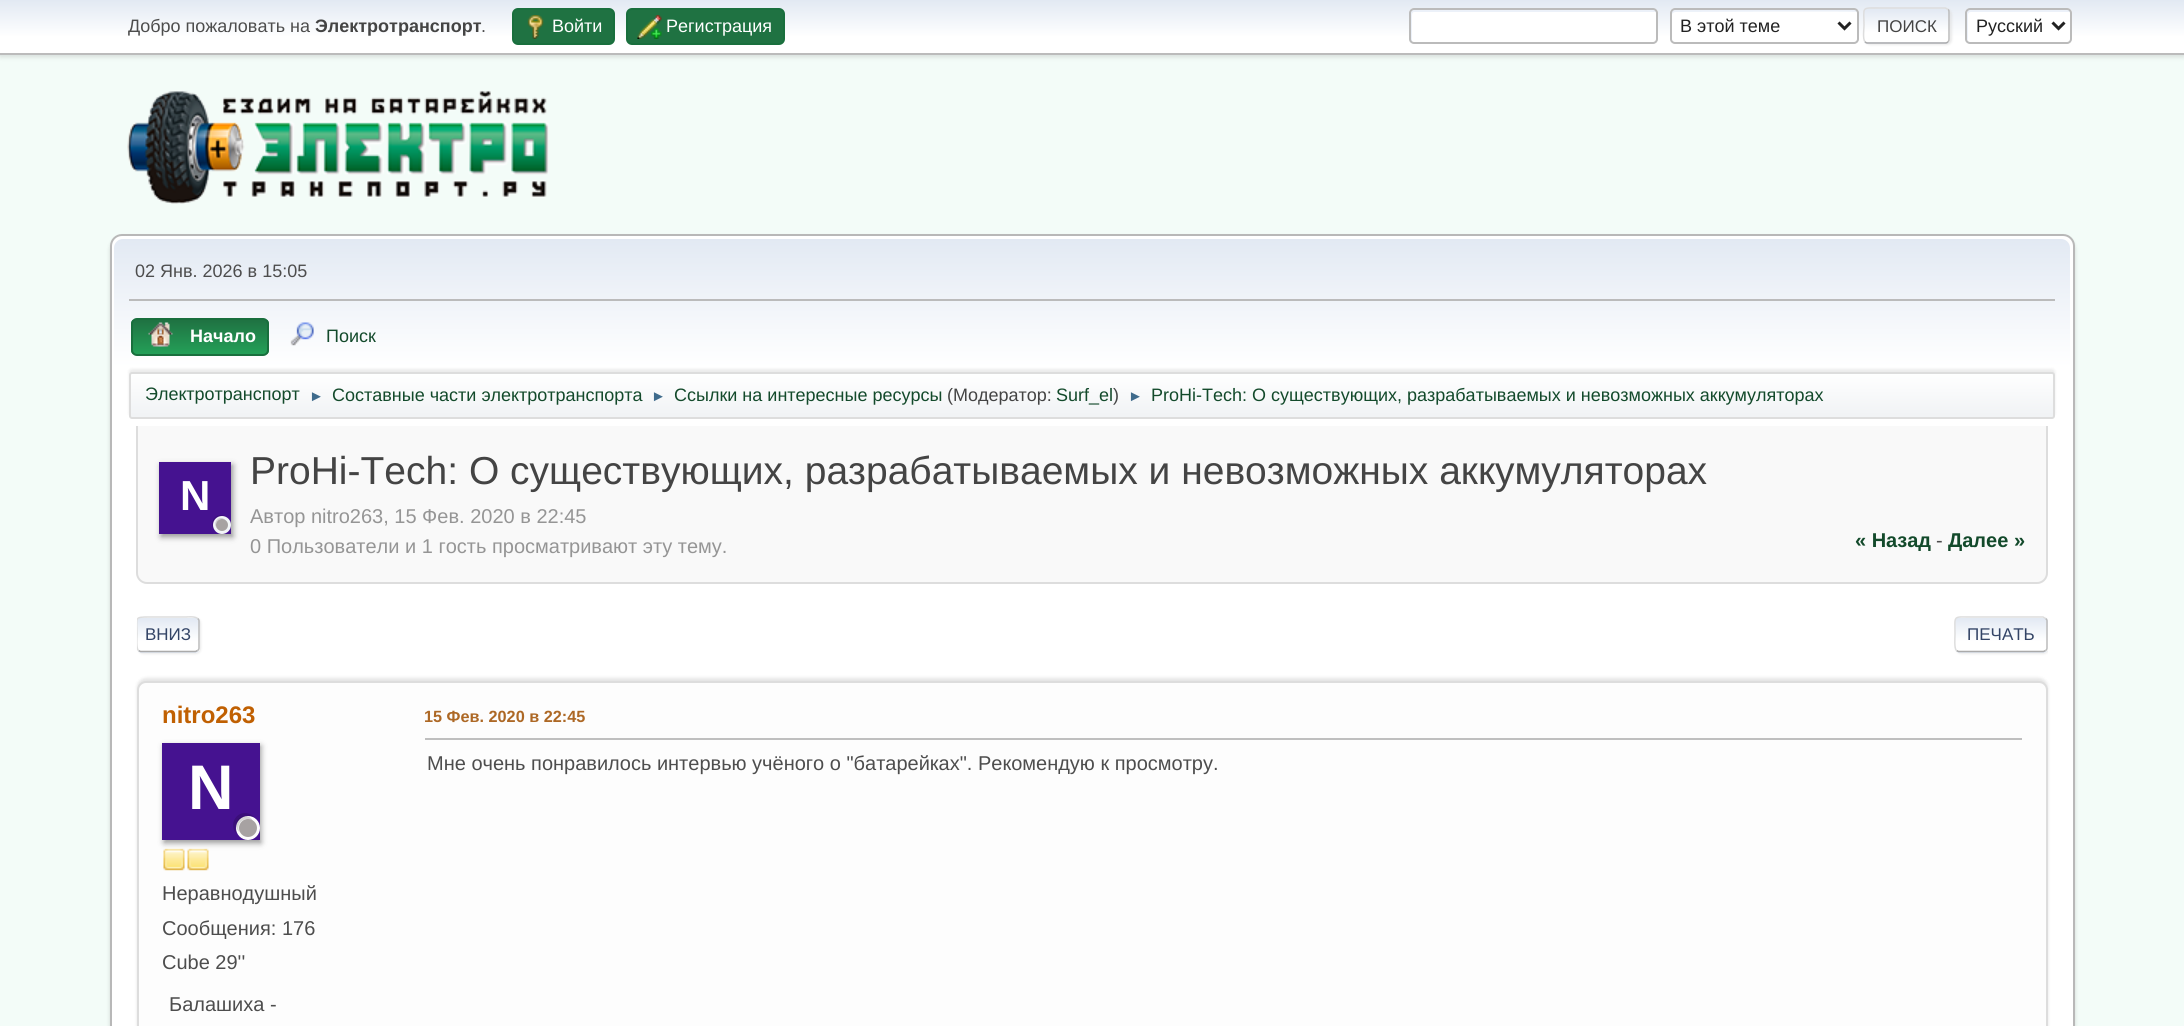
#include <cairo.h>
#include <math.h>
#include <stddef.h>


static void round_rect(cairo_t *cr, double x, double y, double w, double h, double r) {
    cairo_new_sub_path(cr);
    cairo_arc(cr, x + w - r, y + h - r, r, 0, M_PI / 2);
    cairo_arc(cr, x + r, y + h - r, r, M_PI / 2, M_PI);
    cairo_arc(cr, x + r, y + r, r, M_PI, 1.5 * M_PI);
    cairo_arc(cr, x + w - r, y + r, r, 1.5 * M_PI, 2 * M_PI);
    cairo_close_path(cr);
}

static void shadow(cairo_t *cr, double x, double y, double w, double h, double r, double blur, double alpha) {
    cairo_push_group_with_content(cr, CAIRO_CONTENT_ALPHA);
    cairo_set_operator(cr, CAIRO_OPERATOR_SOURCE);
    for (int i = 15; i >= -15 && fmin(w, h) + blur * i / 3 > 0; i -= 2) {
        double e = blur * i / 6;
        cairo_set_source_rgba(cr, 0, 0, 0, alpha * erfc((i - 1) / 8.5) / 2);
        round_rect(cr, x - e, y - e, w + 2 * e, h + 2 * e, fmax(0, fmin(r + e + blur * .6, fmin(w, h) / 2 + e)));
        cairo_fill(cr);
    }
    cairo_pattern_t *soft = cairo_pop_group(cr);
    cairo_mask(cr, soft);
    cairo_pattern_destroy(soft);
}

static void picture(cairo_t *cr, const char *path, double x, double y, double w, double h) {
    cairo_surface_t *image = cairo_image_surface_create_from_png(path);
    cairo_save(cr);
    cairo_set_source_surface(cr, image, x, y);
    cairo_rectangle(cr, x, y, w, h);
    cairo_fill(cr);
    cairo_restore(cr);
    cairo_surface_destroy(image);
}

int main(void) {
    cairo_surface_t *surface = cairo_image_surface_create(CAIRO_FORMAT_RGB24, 2184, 1026);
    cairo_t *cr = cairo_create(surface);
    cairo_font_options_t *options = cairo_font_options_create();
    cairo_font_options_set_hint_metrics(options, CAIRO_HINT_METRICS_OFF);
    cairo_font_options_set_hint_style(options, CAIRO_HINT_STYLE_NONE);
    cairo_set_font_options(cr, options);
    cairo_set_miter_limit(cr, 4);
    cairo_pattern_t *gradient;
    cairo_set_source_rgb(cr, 0.953, 0.988, 0.969);
    cairo_paint(cr);
    cairo_set_source_rgb(cr, 0, 0, 0);
    shadow(cr, 0, 2, 2184, 54, 0, 3, 0.16);
    gradient = cairo_pattern_create_linear(1092, 0, 1092, 53);
    cairo_pattern_add_color_stop_rgba(gradient, 0, 0.886, 0.914, 0.953, 1);
    cairo_pattern_add_color_stop_rgba(gradient, 0.7, 1, 1, 1, 1);
    cairo_set_source(cr, gradient);
    cairo_pattern_destroy(gradient);
    cairo_rectangle(cr, 0, 0, 2184, 53);
    cairo_fill(cr);
    cairo_set_source_rgb(cr, 0.733, 0.733, 0.733);
    cairo_rectangle(cr, 0, 53, 2184, 2);
    cairo_fill(cr);
    cairo_select_font_face(cr, "Liberation Sans", CAIRO_FONT_SLANT_NORMAL, CAIRO_FONT_WEIGHT_NORMAL);
    cairo_set_font_size(cr, 18);
    cairo_set_source_rgb(cr, 0.302, 0.302, 0.302);
    cairo_move_to(cr, 128, 32);
    cairo_show_text(cr, "Добро пожаловать на");
    cairo_select_font_face(cr, "Liberation Sans", CAIRO_FONT_SLANT_NORMAL, CAIRO_FONT_WEIGHT_BOLD);
    cairo_set_source_rgb(cr, 0.267, 0.267, 0.267);
    cairo_move_to(cr, 315, 32);
    cairo_show_text(cr, "Электротранспорт");
    cairo_select_font_face(cr, "Liberation Sans", CAIRO_FONT_SLANT_NORMAL, CAIRO_FONT_WEIGHT_NORMAL);
    cairo_set_source_rgb(cr, 0.302, 0.302, 0.302);
    cairo_move_to(cr, 481, 32);
    cairo_show_text(cr, ".");
    cairo_set_source_rgb(cr, 0.122, 0.447, 0.259);
    round_rect(cr, 513, 9, 101, 35, 5);
    cairo_fill_preserve(cr);
    cairo_set_source_rgb(cr, 0.098, 0.435, 0.239);
    cairo_stroke(cr);
    picture(cr, "img1.png", 527, 15, 17, 24);
    cairo_set_source_rgb(cr, 1, 1, 1);
    cairo_move_to(cr, 552, 32);
    cairo_show_text(cr, "Войти");
    cairo_set_source_rgb(cr, 0.122, 0.447, 0.259);
    round_rect(cr, 627, 9, 157, 35, 5);
    cairo_fill_preserve(cr);
    cairo_set_source_rgb(cr, 0.098, 0.435, 0.239);
    cairo_stroke(cr);
    picture(cr, "img2.png", 637, 15, 25, 24);
    cairo_set_source_rgb(cr, 1, 1, 1);
    cairo_move_to(cr, 666, 32);
    cairo_show_text(cr, "Регистрация");
    round_rect(cr, 1409, 8, 249, 36, 5);
    cairo_fill(cr);
    cairo_set_source_rgb(cr, 0.925, 0.945, 0.973);
    cairo_new_path(cr);
    cairo_move_to(cr, 1414, 12);
    cairo_line_to(cr, 1656, 12);
    cairo_curve_to(cr, 1656, 10, 1655, 9, 1653, 9);
    cairo_line_to(cr, 1413, 9);
    cairo_curve_to(cr, 1411, 9, 1410, 10, 1410, 12);
    cairo_line_to(cr, 1410, 39);
    cairo_curve_to(cr, 1410, 40, 1411, 41, 1412, 42);
    cairo_line_to(cr, 1412, 15);
    cairo_curve_to(cr, 1412, 13, 1413, 12, 1414, 12);
    cairo_close_path(cr);
    cairo_fill(cr);
    round_rect(cr, 1410, 9, 247, 34, 4);
    cairo_set_source_rgb(cr, 0.733, 0.733, 0.733);
    cairo_stroke(cr);
    cairo_set_source_rgb(cr, 1, 1, 1);
    round_rect(cr, 1670, 8, 189, 36, 5);
    cairo_fill(cr);
    cairo_set_source_rgb(cr, 0.925, 0.945, 0.973);
    cairo_new_path(cr);
    cairo_move_to(cr, 1676, 12);
    cairo_curve_to(cr, 1692, 12, 1856, 11, 1857, 12);
    cairo_curve_to(cr, 1857, 10, 1856, 9, 1854, 9);
    cairo_line_to(cr, 1674, 9);
    cairo_curve_to(cr, 1672, 9, 1671, 10, 1671, 12);
    cairo_line_to(cr, 1671, 39);
    cairo_curve_to(cr, 1671, 40, 1671, 41, 1672, 41);
    cairo_line_to(cr, 1672, 15);
    cairo_curve_to(cr, 1672, 13, 1674, 12, 1676, 12);
    cairo_close_path(cr);
    cairo_fill(cr);
    round_rect(cr, 1671, 9, 187, 34, 4);
    cairo_set_source_rgb(cr, 0.733, 0.733, 0.733);
    cairo_stroke(cr);
    cairo_new_path(cr);
    cairo_move_to(cr, 1838.5, 22.5);
    cairo_line_to(cr, 1844.5, 28.5);
    cairo_line_to(cr, 1850.5, 22.5);
    cairo_set_source_rgb(cr, 0.133, 0.133, 0.133);
    cairo_set_line_width(cr, 3);
    cairo_stroke(cr);
    cairo_move_to(cr, 1680, 32);
    cairo_show_text(cr, "В этой теме");
    cairo_set_source_rgb(cr, 0.867, 0.867, 0.867);
    shadow(cr, 1865, 9, 87, 36, 5, 1, 0.57);
    cairo_save(cr);
    round_rect(cr, 1863, 8, 87, 36, 5);
    cairo_clip(cr);
    gradient = cairo_pattern_create_linear(1907, 9, 1907, 42);
    cairo_pattern_add_color_stop_rgba(gradient, 0, 0.886, 0.914, 0.953, 1);
    cairo_pattern_add_color_stop_rgba(gradient, 0.7, 1, 1, 1, 1);
    cairo_set_source(cr, gradient);
    cairo_pattern_destroy(gradient);
    cairo_rectangle(cr, 1863, 9, 87, 33);
    cairo_fill(cr);
    gradient = cairo_pattern_create_linear(1907, 42, 1907, 75);
    cairo_pattern_add_color_stop_rgba(gradient, 0, 0.886, 0.914, 0.953, 1);
    cairo_pattern_add_color_stop_rgba(gradient, 0.7, 1, 1, 1, 1);
    cairo_set_source(cr, gradient);
    cairo_pattern_destroy(gradient);
    cairo_rectangle(cr, 1863, 42, 87, 2);
    cairo_fill(cr);
    cairo_restore(cr);
    cairo_new_path(cr);
    cairo_move_to(cr, 1948, 9.5);
    cairo_curve_to(cr, 1949, 10, 1949, 11, 1949, 12);
    cairo_line_to(cr, 1949, 39);
    cairo_curve_to(cr, 1949, 40, 1949, 41, 1948, 41.5);
    cairo_set_source_rgb(cr, 0.733, 0.733, 0.733);
    cairo_set_line_width(cr, 1.5);
    cairo_stroke(cr);
    cairo_new_path(cr);
    cairo_move_to(cr, 1948, 41.5);
    cairo_curve_to(cr, 1947.5, 42.5, 1946.5, 43, 1945.5, 43);
    cairo_line_to(cr, 1867.5, 43);
    cairo_curve_to(cr, 1866.5, 43, 1865.5, 42.5, 1865, 41.5);
    cairo_set_source_rgb(cr, 0.667, 0.667, 0.667);
    cairo_stroke(cr);
    cairo_new_path(cr);
    cairo_move_to(cr, 1865, 41.5);
    cairo_curve_to(cr, 1862.5, 39.5, 1864, 28.5, 1864, 25.5);
    cairo_curve_to(cr, 1864, 6, 1860.5, 8, 1880.5, 8);
    cairo_line_to(cr, 1945.5, 8);
    cairo_line_to(cr, 1948, 9.5);
    cairo_set_source_rgb(cr, 0.867, 0.867, 0.867);
    cairo_stroke(cr);
    cairo_set_font_size(cr, 17);
    cairo_set_source_rgb(cr, 0.267, 0.267, 0.267);
    cairo_move_to(cr, 1877, 32);
    cairo_show_text(cr, "ПОИСК");
    cairo_set_source_rgb(cr, 1, 1, 1);
    round_rect(cr, 1965, 8, 107, 36, 5);
    cairo_fill(cr);
    cairo_set_source_rgb(cr, 0.925, 0.945, 0.973);
    cairo_new_path(cr);
    cairo_move_to(cr, 1971, 12);
    cairo_line_to(cr, 2070, 12);
    cairo_curve_to(cr, 2070, 6, 2058, 9, 2051, 9);
    cairo_line_to(cr, 1986, 9);
    cairo_curve_to(cr, 1964, 9, 1967, 5, 1967, 26);
    cairo_curve_to(cr, 1967, 28, 1966, 39, 1968, 41);
    cairo_line_to(cr, 1968, 15);
    cairo_curve_to(cr, 1968, 13, 1969, 12, 1971, 12);
    cairo_close_path(cr);
    cairo_fill(cr);
    round_rect(cr, 1966, 9, 105, 34, 4);
    cairo_set_source_rgb(cr, 0.733, 0.733, 0.733);
    cairo_set_line_width(cr, 2);
    cairo_stroke(cr);
    cairo_new_path(cr);
    cairo_move_to(cr, 2052.5, 22.5);
    cairo_line_to(cr, 2058.5, 28.5);
    cairo_line_to(cr, 2064.5, 22.5);
    cairo_set_source_rgb(cr, 0.133, 0.133, 0.133);
    cairo_set_line_width(cr, 3);
    cairo_stroke(cr);
    cairo_set_font_size(cr, 18);
    cairo_move_to(cr, 1976, 32);
    cairo_show_text(cr, "Русский");
    picture(cr, "img3.png", 127, 90, 422, 114);
    cairo_set_source_rgb(cr, 0, 0, 0);
    shadow(cr, 110, 237, 1965, 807, 12, 2, 0.14);
    cairo_set_source_rgb(cr, 1, 1, 1);
    round_rect(cr, 111, 235, 1963, 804, 11);
    cairo_fill_preserve(cr);
    cairo_set_source_rgb(cr, 0.722, 0.722, 0.722);
    cairo_set_line_width(cr, 2);
    cairo_stroke(cr);
    gradient = cairo_pattern_create_linear(1092, 238, 1092, 422);
    cairo_pattern_add_color_stop_rgba(gradient, 0, 0.886, 0.914, 0.953, 1);
    cairo_pattern_add_color_stop_rgba(gradient, 0.7, 1, 1, 1, 1);
    cairo_set_source(cr, gradient);
    cairo_pattern_destroy(gradient);
    cairo_new_path(cr);
    cairo_move_to(cr, 123, 239);
    cairo_line_to(cr, 2061, 239);
    cairo_curve_to(cr, 2066, 239, 2070, 243, 2070, 248);
    cairo_line_to(cr, 2070, 422);
    cairo_line_to(cr, 114, 422);
    cairo_line_to(cr, 114, 248);
    cairo_curve_to(cr, 114, 243, 118, 239, 123, 239);
    cairo_close_path(cr);
    cairo_fill(cr);
    cairo_set_source_rgb(cr, 0.733, 0.733, 0.733);
    cairo_rectangle(cr, 129, 299, 1926, 2);
    cairo_fill(cr);
    cairo_set_source_rgb(cr, 0.302, 0.302, 0.302);
    cairo_move_to(cr, 135, 277);
    cairo_show_text(cr, "02 Янв. 2026 в 15:05");
    cairo_save(cr);
    round_rect(cr, 131, 318, 138, 38, 6);
    cairo_clip(cr);
    gradient = cairo_pattern_create_linear(200, 320, 200, 354);
    cairo_pattern_add_color_stop_rgba(gradient, 0, 0.122, 0.447, 0.259, 1);
    cairo_pattern_add_color_stop_rgba(gradient, 1, 0.141, 0.627, 0.345, 1);
    cairo_set_source(cr, gradient);
    cairo_pattern_destroy(gradient);
    cairo_rectangle(cr, 131, 320, 138, 34);
    cairo_fill(cr);
    cairo_restore(cr);
    round_rect(cr, 132, 319, 136, 36, 5);
    cairo_set_source_rgb(cr, 0.098, 0.435, 0.239);
    cairo_stroke(cr);
    picture(cr, "img4.png", 148, 322, 25, 25);
    cairo_select_font_face(cr, "Liberation Sans", CAIRO_FONT_SLANT_NORMAL, CAIRO_FONT_WEIGHT_BOLD);
    cairo_set_source_rgb(cr, 1, 1, 1);
    cairo_move_to(cr, 190, 342);
    cairo_show_text(cr, "Начало");
    picture(cr, "img5.png", 290, 322, 24, 24);
    cairo_select_font_face(cr, "Liberation Sans", CAIRO_FONT_SLANT_NORMAL, CAIRO_FONT_WEIGHT_NORMAL);
    cairo_set_source_rgb(cr, 0.078, 0.29, 0.169);
    cairo_move_to(cr, 326, 342);
    cairo_show_text(cr, "Поиск");
    cairo_set_source_rgb(cr, 0, 0, 0);
    shadow(cr, 129, 369, 1926, 47, 3, 1.5, 0.08);
    cairo_save(cr);
    round_rect(cr, 129, 372, 1926, 47, 3);
    cairo_clip(cr);
    gradient = cairo_pattern_create_linear(1092, 373, 1092, 417);
    cairo_pattern_add_color_stop_rgba(gradient, 0, 1, 1, 1, 1);
    cairo_pattern_add_color_stop_rgba(gradient, 0.95, 0.945, 0.953, 0.961, 1);
    cairo_set_source(cr, gradient);
    cairo_pattern_destroy(gradient);
    cairo_rectangle(cr, 129, 374, 1926, 43);
    cairo_fill(cr);
    cairo_restore(cr);
    round_rect(cr, 130, 373, 1924, 45, 2);
    cairo_set_source_rgb(cr, 0.867, 0.867, 0.867);
    cairo_stroke(cr);
    cairo_set_source_rgb(cr, 0.078, 0.29, 0.169);
    cairo_move_to(cr, 145, 400);
    cairo_show_text(cr, "Электротранспорт");
    cairo_set_font_size(cr, 15);
    cairo_set_source_rgb(cr, 0.247, 0.42, 0.549);
    cairo_move_to(cr, 309, 401);
    cairo_show_text(cr, "►");
    cairo_set_font_size(cr, 18);
    cairo_set_source_rgb(cr, 0.078, 0.29, 0.169);
    cairo_move_to(cr, 332, 401);
    cairo_show_text(cr, "Составные части электротранспорта");
    cairo_set_font_size(cr, 15);
    cairo_set_source_rgb(cr, 0.247, 0.42, 0.549);
    cairo_move_to(cr, 651, 401);
    cairo_show_text(cr, "►");
    cairo_set_font_size(cr, 18);
    cairo_set_source_rgb(cr, 0.078, 0.29, 0.169);
    cairo_move_to(cr, 674, 401);
    cairo_show_text(cr, "Ссылки на интересные ресурсы");
    cairo_set_source_rgb(cr, 0.267, 0.267, 0.267);
    cairo_move_to(cr, 947, 401);
    cairo_show_text(cr, "(Модератор:");
    cairo_set_source_rgb(cr, 0.078, 0.29, 0.169);
    cairo_move_to(cr, 1056, 401);
    cairo_show_text(cr, "Surf_el");
    cairo_set_source_rgb(cr, 0.267, 0.267, 0.267);
    cairo_move_to(cr, 1113, 401);
    cairo_show_text(cr, ")");
    cairo_set_font_size(cr, 15);
    cairo_set_source_rgb(cr, 0.247, 0.42, 0.549);
    cairo_move_to(cr, 1128, 401);
    cairo_show_text(cr, "►");
    cairo_set_font_size(cr, 18);
    cairo_set_source_rgb(cr, 0.078, 0.29, 0.169);
    cairo_move_to(cr, 1151, 401);
    cairo_show_text(cr, "ProHi-Tech: О существующих, разрабатываемых и невозможных аккумуляторах");
    cairo_set_source_rgb(cr, 0.973, 0.973, 0.973);
    cairo_new_path(cr);
    cairo_move_to(cr, 137, 426);
    cairo_line_to(cr, 2048, 426);
    cairo_line_to(cr, 2048, 573);
    cairo_curve_to(cr, 2048, 579, 2043, 584, 2037, 584);
    cairo_line_to(cr, 148, 584);
    cairo_curve_to(cr, 142, 584, 137, 579, 137, 573);
    cairo_close_path(cr);
    cairo_fill(cr);
    cairo_set_source_rgb(cr, 0.867, 0.867, 0.867);
    cairo_set_fill_rule(cr, CAIRO_FILL_RULE_EVEN_ODD);
    cairo_new_path(cr);
    cairo_move_to(cr, 136, 426);
    cairo_line_to(cr, 2048, 426);
    cairo_line_to(cr, 2048, 573);
    cairo_curve_to(cr, 2048, 579, 2043, 584, 2037, 584);
    cairo_line_to(cr, 147, 584);
    cairo_curve_to(cr, 141, 584, 136, 579, 136, 573);
    cairo_close_path(cr);
    cairo_move_to(cr, 138, 426);
    cairo_line_to(cr, 2046, 426);
    cairo_line_to(cr, 2046, 573);
    cairo_curve_to(cr, 2046, 578, 2042, 582, 2037, 582);
    cairo_line_to(cr, 147, 582);
    cairo_curve_to(cr, 142, 582, 138, 578, 138, 573);
    cairo_close_path(cr);
    cairo_fill(cr);
    cairo_set_source_rgb(cr, 0, 0, 0);
    shadow(cr, 161, 465, 72, 72, 0, 3, 0.4);
    cairo_set_source_rgb(cr, 0.271, 0.071, 0.565);
    cairo_rectangle(cr, 159, 462, 72, 72);
    cairo_fill(cr);
    cairo_select_font_face(cr, "Liberation Sans", CAIRO_FONT_SLANT_NORMAL, CAIRO_FONT_WEIGHT_BOLD);
    cairo_set_font_size(cr, 42);
    cairo_set_source_rgb(cr, 1, 1, 1);
    cairo_move_to(cr, 180, 510);
    cairo_show_text(cr, "N");
    cairo_set_source_rgb(cr, 0.231, 0.059, 0.478);
    cairo_set_fill_rule(cr, CAIRO_FILL_RULE_WINDING);
    cairo_new_path(cr);
    cairo_move_to(cr, 221, 515);
    cairo_curve_to(cr, 212.5, 515, 209, 525.5, 215, 531);
    cairo_curve_to(cr, 208, 522.5, 219.5, 511, 228, 518);
    cairo_curve_to(cr, 226, 516, 223.5, 515, 221, 515);
    cairo_close_path(cr);
    cairo_fill(cr);
    cairo_set_source_rgb(cr, 0.953, 0.961, 0.969);
    cairo_arc(cr, 222, 525, 9, 0, 2 * M_PI);
    cairo_fill(cr);
    cairo_set_source_rgb(cr, 0.812, 0.816, 0.824);
    cairo_new_path(cr);
    cairo_move_to(cr, 221, 518);
    cairo_curve_to(cr, 215.5, 518, 213, 525.5, 217.5, 528.5);
    cairo_curve_to(cr, 213, 523, 220, 516, 225.5, 520.5);
    cairo_curve_to(cr, 224.5, 519, 223, 518, 221, 518);
    cairo_close_path(cr);
    cairo_fill(cr);
    cairo_set_source_rgb(cr, 0.655, 0.635, 0.635);
    cairo_arc(cr, 222, 525, 6, 0, 2 * M_PI);
    cairo_fill(cr);
    cairo_select_font_face(cr, "Liberation Sans", CAIRO_FONT_SLANT_NORMAL, CAIRO_FONT_WEIGHT_NORMAL);
    cairo_set_font_size(cr, 39);
    cairo_set_source_rgb(cr, 0.267, 0.267, 0.267);
    cairo_move_to(cr, 250, 484);
    cairo_show_text(cr, "ProHi-Tech: О существующих, разрабатываемых и невозможных аккумуляторах");
    cairo_set_font_size(cr, 20);
    cairo_set_source_rgb(cr, 0.584, 0.584, 0.584);
    cairo_move_to(cr, 250, 523);
    cairo_show_text(cr, "Автор nitro263, 15 Фев. 2020 в 22:45");
    cairo_move_to(cr, 250, 553);
    cairo_show_text(cr, "0 Пользователи и 1 гость просматривают эту тему.");
    cairo_select_font_face(cr, "Liberation Sans", CAIRO_FONT_SLANT_NORMAL, CAIRO_FONT_WEIGHT_BOLD);
    cairo_set_source_rgb(cr, 0.078, 0.29, 0.169);
    cairo_move_to(cr, 1855, 547);
    cairo_show_text(cr, "« Назад");
    cairo_select_font_face(cr, "Liberation Sans", CAIRO_FONT_SLANT_NORMAL, CAIRO_FONT_WEIGHT_NORMAL);
    cairo_set_source_rgb(cr, 0.302, 0.302, 0.302);
    cairo_move_to(cr, 1936, 547);
    cairo_show_text(cr, "-");
    cairo_select_font_face(cr, "Liberation Sans", CAIRO_FONT_SLANT_NORMAL, CAIRO_FONT_WEIGHT_BOLD);
    cairo_set_source_rgb(cr, 0.078, 0.29, 0.169);
    cairo_move_to(cr, 1948, 547);
    cairo_show_text(cr, "Далее »");
    cairo_set_source_rgb(cr, 0.867, 0.867, 0.867);
    shadow(cr, 138, 618, 63, 36, 5, 1, 0.57);
    cairo_set_source_rgb(cr, 1, 1, 1);
    round_rect(cr, 137, 617, 63, 36, 5);
    cairo_fill(cr);
    cairo_save(cr);
    round_rect(cr, 137, 617, 63, 36, 5);
    cairo_clip(cr);
    gradient = cairo_pattern_create_linear(168, 618, 168, 651);
    cairo_pattern_add_color_stop_rgba(gradient, 0, 0.886, 0.914, 0.953, 1);
    cairo_pattern_add_color_stop_rgba(gradient, 0.7, 1, 1, 1, 1);
    cairo_set_source(cr, gradient);
    cairo_pattern_destroy(gradient);
    cairo_rectangle(cr, 137, 618, 63, 33);
    cairo_fill(cr);
    gradient = cairo_pattern_create_linear(168, 651, 168, 684);
    cairo_pattern_add_color_stop_rgba(gradient, 0, 0.886, 0.914, 0.953, 1);
    cairo_pattern_add_color_stop_rgba(gradient, 0.7, 1, 1, 1, 1);
    cairo_set_source(cr, gradient);
    cairo_pattern_destroy(gradient);
    cairo_rectangle(cr, 137, 651, 63, 2);
    cairo_fill(cr);
    cairo_restore(cr);
    cairo_new_path(cr);
    cairo_move_to(cr, 197.5, 618.5);
    cairo_curve_to(cr, 198.5, 619, 199, 620, 199, 621);
    cairo_line_to(cr, 199, 648);
    cairo_curve_to(cr, 199, 649, 198.5, 650, 197.5, 650.5);
    cairo_set_source_rgb(cr, 0.733, 0.733, 0.733);
    cairo_set_line_width(cr, 1.5);
    cairo_stroke(cr);
    cairo_new_path(cr);
    cairo_move_to(cr, 197.5, 650.5);
    cairo_line_to(cr, 195.5, 651.5);
    cairo_line_to(cr, 140.5, 651.5);
    cairo_line_to(cr, 138.5, 650.5);
    cairo_set_source_rgb(cr, 0.667, 0.667, 0.667);
    cairo_stroke(cr);
    cairo_save(cr);
    cairo_rectangle(cr, 137, 606, 1911, 57);
    cairo_clip(cr);
    cairo_new_path(cr);
    cairo_move_to(cr, 138.5, 650.5);
    cairo_curve_to(cr, 136, 648.5, 137, 637.5, 137, 634.5);
    cairo_curve_to(cr, 137, 617, 133.5, 617, 150, 617);
    cairo_line_to(cr, 186, 617);
    cairo_curve_to(cr, 187, 617, 195, 616, 197.5, 618.5);
    cairo_set_source_rgb(cr, 0.867, 0.867, 0.867);
    cairo_stroke(cr);
    cairo_restore(cr);
    cairo_select_font_face(cr, "Liberation Sans", CAIRO_FONT_SLANT_NORMAL, CAIRO_FONT_WEIGHT_NORMAL);
    cairo_set_font_size(cr, 17);
    cairo_set_source_rgb(cr, 0.2, 0.267, 0.4);
    cairo_move_to(cr, 145, 640);
    cairo_show_text(cr, "ВНИЗ");
    cairo_save(cr);
    cairo_rectangle(cr, 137, 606, 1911, 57);
    cairo_clip(cr);
    cairo_set_source_rgb(cr, 0.867, 0.867, 0.867);
    shadow(cr, 1956, 618, 93, 36, 5, 1, 0.57);
    cairo_restore(cr);
    cairo_set_source_rgb(cr, 1, 1, 1);
    round_rect(cr, 1955, 617, 93, 36, 5);
    cairo_fill(cr);
    cairo_save(cr);
    round_rect(cr, 1955, 617, 93, 36, 5);
    cairo_clip(cr);
    gradient = cairo_pattern_create_linear(2001, 618, 2001, 651);
    cairo_pattern_add_color_stop_rgba(gradient, 0, 0.886, 0.914, 0.953, 1);
    cairo_pattern_add_color_stop_rgba(gradient, 0.7, 1, 1, 1, 1);
    cairo_set_source(cr, gradient);
    cairo_pattern_destroy(gradient);
    cairo_rectangle(cr, 1955, 618, 93, 33);
    cairo_fill(cr);
    gradient = cairo_pattern_create_linear(2001, 651, 2001, 684);
    cairo_pattern_add_color_stop_rgba(gradient, 0, 0.886, 0.914, 0.953, 1);
    cairo_pattern_add_color_stop_rgba(gradient, 0.7, 1, 1, 1, 1);
    cairo_set_source(cr, gradient);
    cairo_pattern_destroy(gradient);
    cairo_rectangle(cr, 1955, 651, 93, 2);
    cairo_fill(cr);
    cairo_restore(cr);
    cairo_new_path(cr);
    cairo_move_to(cr, 2045.5, 618.5);
    cairo_curve_to(cr, 2046.5, 619, 2047, 620, 2047, 621);
    cairo_line_to(cr, 2047, 648);
    cairo_curve_to(cr, 2047, 649, 2046.5, 650, 2045.5, 650.5);
    cairo_set_source_rgb(cr, 0.733, 0.733, 0.733);
    cairo_stroke(cr);
    cairo_new_path(cr);
    cairo_move_to(cr, 2045.5, 650.5);
    cairo_line_to(cr, 2043.5, 651.5);
    cairo_line_to(cr, 1958.5, 651.5);
    cairo_line_to(cr, 1956.5, 650.5);
    cairo_set_source_rgb(cr, 0.667, 0.667, 0.667);
    cairo_stroke(cr);
    cairo_new_path(cr);
    cairo_move_to(cr, 1956.5, 650.5);
    cairo_curve_to(cr, 1954, 648.5, 1955, 637.5, 1955, 634.5);
    cairo_curve_to(cr, 1955, 614.5, 1952, 617, 1973, 617);
    cairo_line_to(cr, 2043, 617);
    cairo_line_to(cr, 2045.5, 618.5);
    cairo_set_source_rgb(cr, 0.867, 0.867, 0.867);
    cairo_stroke(cr);
    cairo_set_source_rgb(cr, 0.2, 0.267, 0.4);
    cairo_move_to(cr, 1967, 640);
    cairo_show_text(cr, "ПЕЧАТЬ");
    cairo_set_source_rgb(cr, 0, 0, 0);
    shadow(cr, 137, 678, 1911, 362, 9, 1.5, 0.1);
    cairo_set_source_rgb(cr, 0.992, 0.992, 0.992);
    round_rect(cr, 138, 682, 1909, 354, 8);
    cairo_fill_preserve(cr);
    cairo_set_source_rgb(cr, 0.867, 0.867, 0.867);
    cairo_set_line_width(cr, 2);
    cairo_stroke(cr);
    cairo_select_font_face(cr, "Liberation Sans", CAIRO_FONT_SLANT_NORMAL, CAIRO_FONT_WEIGHT_BOLD);
    cairo_set_font_size(cr, 24);
    cairo_set_source_rgb(cr, 0.753, 0.376, 0.008);
    cairo_move_to(cr, 162, 723);
    cairo_show_text(cr, "nitro263");
    picture(cr, "img6.png", 163, 848, 22, 23);
    picture(cr, "img6.png", 187, 848, 22, 23);
    cairo_set_source_rgb(cr, 0, 0, 0);
    shadow(cr, 164, 746, 97, 97, 0, 3, 0.4);
    cairo_set_source_rgb(cr, 0.271, 0.071, 0.565);
    cairo_rectangle(cr, 162, 743, 98, 97);
    cairo_fill(cr);
    cairo_set_font_size(cr, 63);
    cairo_set_source_rgb(cr, 1, 1, 1);
    cairo_move_to(cr, 188, 809);
    cairo_show_text(cr, "N");
    cairo_set_source_rgb(cr, 0.231, 0.059, 0.478);
    cairo_new_path(cr);
    cairo_move_to(cr, 245, 813);
    cairo_curve_to(cr, 234, 813, 229, 827, 237, 834);
    cairo_curve_to(cr, 230.5, 822.5, 245.5, 810, 255.5, 819);
    cairo_curve_to(cr, 253.5, 815.5, 249.5, 813, 245, 813);
    cairo_close_path(cr);
    cairo_fill(cr);
    cairo_set_source_rgb(cr, 0.992, 0.992, 0.992);
    cairo_arc(cr, 248, 828, 12, 0, 2 * M_PI);
    cairo_fill(cr);
    cairo_set_source_rgba(cr, 0, 0, 0, 0.15);
    cairo_new_path(cr);
    cairo_move_to(cr, 245, 816);
    cairo_curve_to(cr, 236.5, 816, 233, 827, 239.5, 832);
    cairo_curve_to(cr, 235, 823.5, 245.5, 815, 253, 821);
    cairo_curve_to(cr, 251.5, 818, 248.5, 816, 245, 816);
    cairo_close_path(cr);
    cairo_fill(cr);
    cairo_set_source_rgb(cr, 0.655, 0.635, 0.635);
    cairo_arc(cr, 248, 828, 9, 0, 2 * M_PI);
    cairo_fill(cr);
    cairo_select_font_face(cr, "Liberation Sans", CAIRO_FONT_SLANT_NORMAL, CAIRO_FONT_WEIGHT_NORMAL);
    cairo_set_font_size(cr, 20);
    cairo_set_source_rgb(cr, 0.302, 0.302, 0.302);
    cairo_move_to(cr, 162, 900);
    cairo_show_text(cr, "Неравнодушный");
    cairo_move_to(cr, 162, 935);
    cairo_show_text(cr, "Сообщения: 176");
    cairo_move_to(cr, 162, 969);
    cairo_show_text(cr, "Cube 29''");
    cairo_move_to(cr, 169, 1011);
    cairo_show_text(cr, "Балашиха -");
    cairo_select_font_face(cr, "Liberation Sans", CAIRO_FONT_SLANT_NORMAL, CAIRO_FONT_WEIGHT_BOLD);
    cairo_set_font_size(cr, 16.25);
    cairo_set_source_rgb(cr, 0.678, 0.408, 0.145);
    cairo_move_to(cr, 424, 722);
    cairo_show_text(cr, "15 Фев. 2020 в 22:45");
    cairo_set_source_rgb(cr, 0.749, 0.749, 0.749);
    cairo_rectangle(cr, 425, 738, 1597, 2);
    cairo_fill(cr);
    cairo_select_font_face(cr, "Liberation Sans", CAIRO_FONT_SLANT_NORMAL, CAIRO_FONT_WEIGHT_NORMAL);
    cairo_set_font_size(cr, 20);
    cairo_set_source_rgb(cr, 0.302, 0.302, 0.302);
    cairo_move_to(cr, 427, 770);
    cairo_show_text(cr, "Мне очень понравилось интервью учёного о \"батарейках\". Рекомендую к просмотру.");
    cairo_surface_write_to_png(surface, "page.png");
    cairo_font_options_destroy(options);
    cairo_destroy(cr);
    cairo_surface_destroy(surface);
    return 0;
}
